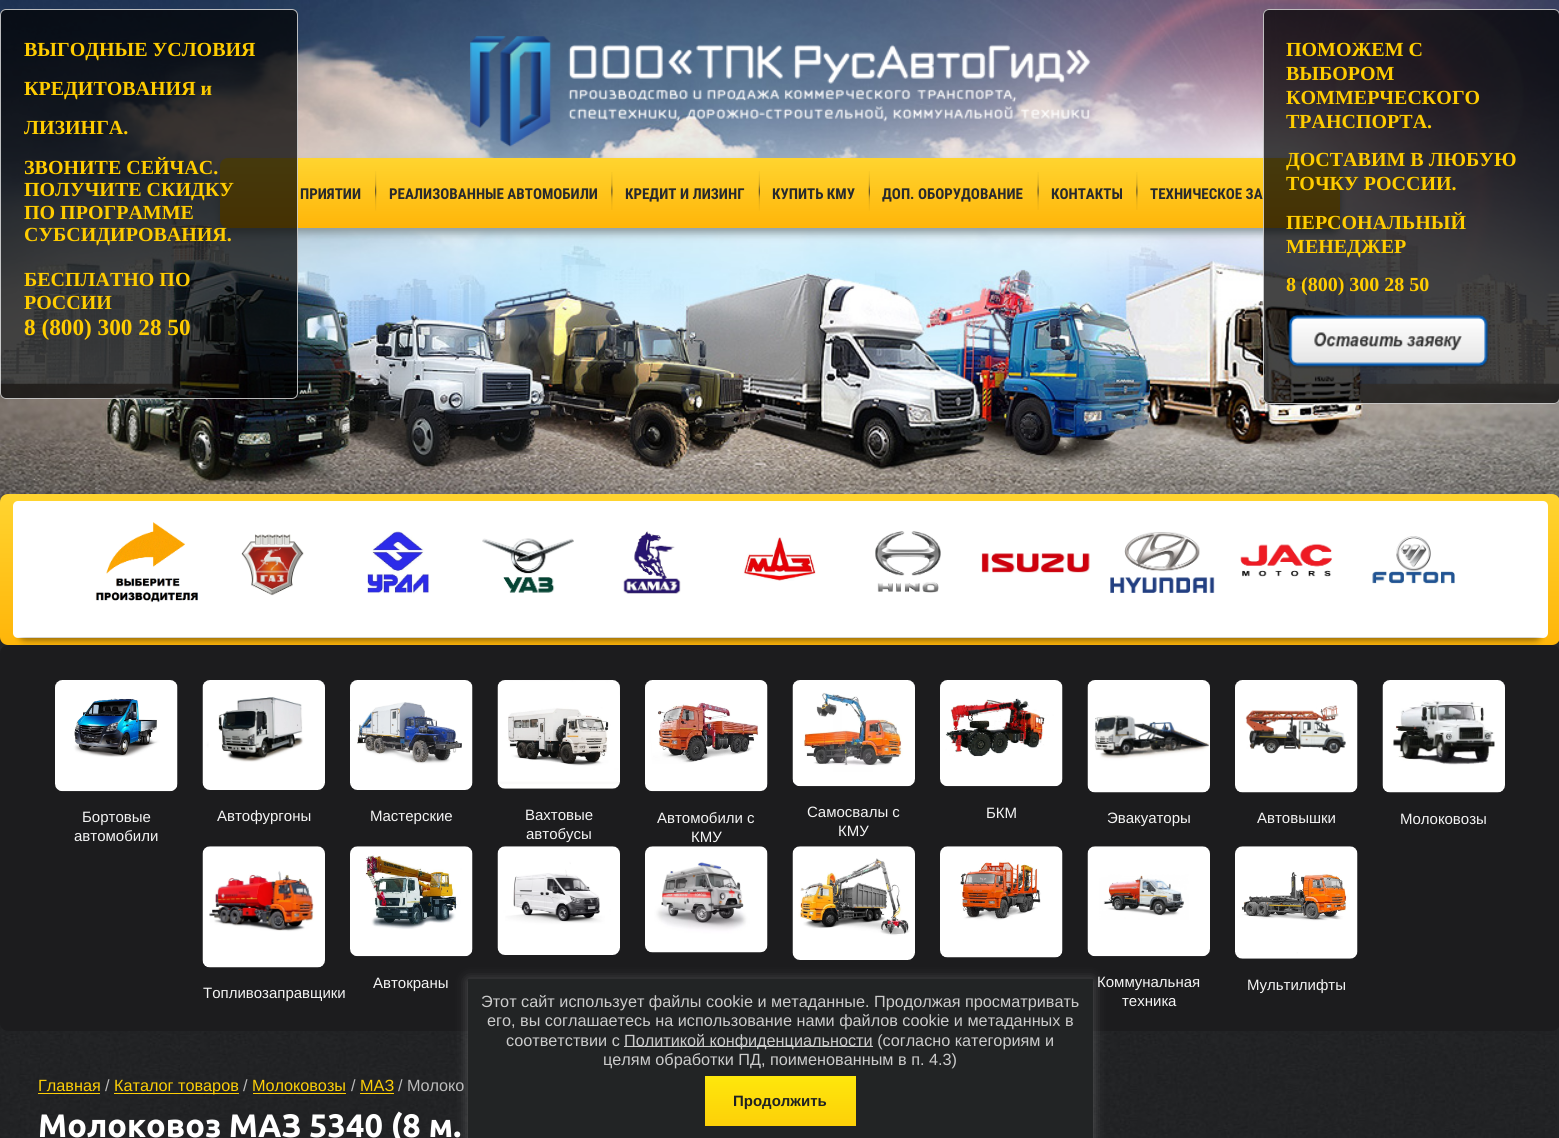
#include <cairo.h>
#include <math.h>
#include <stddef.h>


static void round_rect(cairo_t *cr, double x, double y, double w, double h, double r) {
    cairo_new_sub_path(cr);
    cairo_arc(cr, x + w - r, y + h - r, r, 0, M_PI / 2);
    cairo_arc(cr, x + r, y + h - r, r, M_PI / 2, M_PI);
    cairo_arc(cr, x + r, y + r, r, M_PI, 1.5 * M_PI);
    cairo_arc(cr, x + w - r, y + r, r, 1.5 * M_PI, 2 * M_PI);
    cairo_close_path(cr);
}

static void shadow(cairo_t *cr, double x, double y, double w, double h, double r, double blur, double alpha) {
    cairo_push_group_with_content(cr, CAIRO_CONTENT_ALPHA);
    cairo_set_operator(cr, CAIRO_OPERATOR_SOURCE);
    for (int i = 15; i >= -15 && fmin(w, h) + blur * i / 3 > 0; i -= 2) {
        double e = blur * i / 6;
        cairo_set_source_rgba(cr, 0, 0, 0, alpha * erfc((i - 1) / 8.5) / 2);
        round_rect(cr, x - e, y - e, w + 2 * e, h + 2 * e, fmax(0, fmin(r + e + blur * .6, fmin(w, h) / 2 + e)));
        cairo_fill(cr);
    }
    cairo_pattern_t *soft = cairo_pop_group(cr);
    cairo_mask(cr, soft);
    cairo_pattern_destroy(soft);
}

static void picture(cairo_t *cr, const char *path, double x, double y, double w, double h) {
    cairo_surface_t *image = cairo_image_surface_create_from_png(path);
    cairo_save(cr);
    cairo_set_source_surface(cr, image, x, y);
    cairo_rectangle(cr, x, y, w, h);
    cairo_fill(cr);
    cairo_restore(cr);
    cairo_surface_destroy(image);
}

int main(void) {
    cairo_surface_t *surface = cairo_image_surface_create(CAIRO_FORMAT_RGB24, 1559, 1138);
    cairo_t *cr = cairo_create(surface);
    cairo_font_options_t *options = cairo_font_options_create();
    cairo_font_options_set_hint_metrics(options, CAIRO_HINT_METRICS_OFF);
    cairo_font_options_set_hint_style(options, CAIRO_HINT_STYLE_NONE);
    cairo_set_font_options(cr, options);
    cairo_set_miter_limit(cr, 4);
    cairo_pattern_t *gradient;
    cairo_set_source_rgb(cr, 0.133, 0.141, 0.149);
    cairo_paint(cr);
    picture(cr, "img1.png", 0, 1023, 1557, 115);
    picture(cr, "img2.png", 0, 0, 1559, 653);
    cairo_set_source_rgb(cr, 0.549, 0.608, 0.627);
    shadow(cr, 220, 163, 1120, 70, 8, 4, 1);
    gradient = cairo_pattern_create_linear(780, 157, 780, 228);
    cairo_pattern_add_color_stop_rgba(gradient, 0, 1, 0.835, 0.188, 1);
    cairo_pattern_add_color_stop_rgba(gradient, 1, 1, 0.71, 0.035, 1);
    cairo_set_source(cr, gradient);
    cairo_pattern_destroy(gradient);
    round_rect(cr, 220, 158, 1120, 70, 8);
    cairo_fill(cr);
    cairo_set_source_rgba(cr, 0, 0, 0, 0.73);
    round_rect(cr, 0, 9, 298, 390, 6);
    cairo_fill(cr);
    round_rect(cr, 0.5, 9.5, 297, 389, 5.5);
    cairo_set_source_rgba(cr, 1, 1, 1, 0.72);
    cairo_set_line_width(cr, 1);
    cairo_stroke(cr);
    cairo_select_font_face(cr, "Liberation Serif", CAIRO_FONT_SLANT_NORMAL, CAIRO_FONT_WEIGHT_BOLD);
    cairo_set_font_size(cr, 20);
    cairo_set_source_rgb(cr, 1, 0.8, 0);
    cairo_move_to(cr, 24, 56);
    cairo_show_text(cr, "ВЫГОДНЫЕ УСЛОВИЯ");
    cairo_move_to(cr, 24, 95);
    cairo_show_text(cr, "КРЕДИТОВАНИЯ и");
    cairo_move_to(cr, 24, 134);
    cairo_show_text(cr, "ЛИЗИНГА.");
    cairo_move_to(cr, 24, 174);
    cairo_show_text(cr, "ЗВОНИТЕ СЕЙЧАС.");
    cairo_move_to(cr, 24, 196);
    cairo_show_text(cr, "ПОЛУЧИТЕ СКИДКУ");
    cairo_move_to(cr, 24, 219);
    cairo_show_text(cr, "ПО ПРОГРАММЕ");
    cairo_move_to(cr, 24, 241);
    cairo_show_text(cr, "СУБСИДИРОВАНИЯ.");
    cairo_move_to(cr, 24, 286);
    cairo_show_text(cr, "БЕСПЛАТНО ПО");
    cairo_move_to(cr, 24, 309);
    cairo_show_text(cr, "РОССИИ");
    cairo_set_font_size(cr, 23.25);
    cairo_move_to(cr, 24, 335);
    cairo_show_text(cr, "8 (800) 300 28 50");
    picture(cr, "img3.png", 470, 36, 621, 111);
    cairo_set_source_rgba(cr, 0, 0, 0, 0.73);
    round_rect(cr, 1263, 9, 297, 395, 6);
    cairo_fill(cr);
    round_rect(cr, 1263.5, 9.5, 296, 394, 5.5);
    cairo_set_source_rgba(cr, 1, 1, 1, 0.72);
    cairo_stroke(cr);
    cairo_set_font_size(cr, 20);
    cairo_set_source_rgb(cr, 1, 0.8, 0);
    cairo_move_to(cr, 1286, 56);
    cairo_show_text(cr, "ПОМОЖЕМ С");
    cairo_move_to(cr, 1286, 80);
    cairo_show_text(cr, "ВЫБОРОМ");
    cairo_move_to(cr, 1286, 104);
    cairo_show_text(cr, "КОММЕРЧЕСКОГО");
    cairo_move_to(cr, 1286, 128);
    cairo_show_text(cr, "ТРАНСПОРТА.");
    cairo_move_to(cr, 1286, 166);
    cairo_show_text(cr, "ДОСТАВИМ В ЛЮБУЮ");
    cairo_move_to(cr, 1286, 190);
    cairo_show_text(cr, "ТОЧКУ РОССИИ.");
    cairo_move_to(cr, 1286, 229);
    cairo_show_text(cr, "ПЕРСОНАЛЬНЫЙ");
    cairo_move_to(cr, 1286, 253);
    cairo_show_text(cr, "МЕНЕДЖЕР");
    cairo_move_to(cr, 1286, 291);
    cairo_show_text(cr, "8 (800) 300 28 50");
    picture(cr, "img4.png", 1288, 314, 201, 55);
    cairo_select_font_face(cr, "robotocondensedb", CAIRO_FONT_SLANT_NORMAL, CAIRO_FONT_WEIGHT_BOLD);
    cairo_set_font_size(cr, 15);
    cairo_set_source_rgb(cr, 0.153, 0.161, 0.176);
    cairo_move_to(cr, 300, 199);
    cairo_show_text(cr, "ПРИЯТИИ");
    picture(cr, "img5.png", 375, 171, 2, 40);
    cairo_move_to(cr, 389, 199);
    cairo_show_text(cr, "РЕАЛИЗОВАННЫЕ АВТОМОБИЛИ");
    picture(cr, "img6.png", 611, 172, 2, 38);
    cairo_move_to(cr, 625, 199);
    cairo_show_text(cr, "КРЕДИТ И ЛИЗИНГ");
    picture(cr, "img7.png", 758, 171, 2, 40);
    cairo_move_to(cr, 772, 199);
    cairo_show_text(cr, "КУПИТЬ КМУ");
    picture(cr, "img7.png", 868, 171, 2, 40);
    cairo_move_to(cr, 882, 199);
    cairo_show_text(cr, "ДОП. ОБОРУДОВАНИЕ");
    picture(cr, "img8.png", 1037, 172, 2, 38);
    cairo_move_to(cr, 1051, 199);
    cairo_show_text(cr, "КОНТАКТЫ");
    picture(cr, "img6.png", 1136, 172, 2, 38);
    cairo_move_to(cr, 1150, 199);
    cairo_show_text(cr, "ТЕХНИЧЕСКОЕ ЗА");
    gradient = cairo_pattern_create_linear(780, 494, 780, 645);
    cairo_pattern_add_color_stop_rgba(gradient, 0, 1, 0.835, 0.188, 1);
    cairo_pattern_add_color_stop_rgba(gradient, 1, 1, 0.71, 0.035, 1);
    cairo_set_source(cr, gradient);
    cairo_pattern_destroy(gradient);
    round_rect(cr, 0, 494, 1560, 151, 8);
    cairo_fill(cr);
    cairo_set_source_rgb(cr, 1, 1, 1);
    round_rect(cr, 13, 501, 1535, 137, 5);
    cairo_fill(cr);
    picture(cr, "img9.png", 95, 522, 103, 81);
    picture(cr, "img10.png", 241, 534, 63, 62);
    picture(cr, "img11.png", 367, 530, 62, 64);
    picture(cr, "img12.png", 482, 538, 92, 55);
    picture(cr, "img13.png", 623, 531, 58, 63);
    picture(cr, "img14.png", 743, 537, 73, 44);
    picture(cr, "img15.png", 875, 531, 66, 62);
    picture(cr, "img16.png", 981, 553, 109, 20);
    picture(cr, "img17.png", 1110, 532, 105, 61);
    picture(cr, "img18.png", 1240, 543, 92, 34);
    picture(cr, "img19.png", 1372, 536, 83, 48);
    picture(cr, "img20.png", 15, 637, 1530, 8);
    cairo_set_source_rgb(cr, 0.11, 0.11, 0.118);
    round_rect(cr, 0, 645, 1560, 386, 8);
    cairo_fill(cr);
    picture(cr, "img21.png", 55, 680, 123, 112);
    cairo_select_font_face(cr, "Liberation Sans", CAIRO_FONT_SLANT_NORMAL, CAIRO_FONT_WEIGHT_NORMAL);
    cairo_set_source_rgb(cr, 0.957, 0.957, 0.957);
    cairo_move_to(cr, 82, 822);
    cairo_show_text(cr, "Бортовые");
    cairo_move_to(cr, 74, 841);
    cairo_show_text(cr, "автомобили");
    picture(cr, "img22.png", 202, 680, 123, 110);
    cairo_move_to(cr, 217, 821);
    cairo_show_text(cr, "Автофургоны");
    picture(cr, "img23.png", 350, 680, 123, 110);
    cairo_move_to(cr, 370, 821);
    cairo_show_text(cr, "Мастерские");
    picture(cr, "img24.png", 497, 680, 123, 109);
    cairo_move_to(cr, 525, 820);
    cairo_show_text(cr, "Вахтовые");
    cairo_move_to(cr, 526, 839);
    cairo_show_text(cr, "автобусы");
    picture(cr, "img25.png", 645, 680, 123, 112);
    cairo_move_to(cr, 657, 823);
    cairo_show_text(cr, "Автомобили с");
    cairo_move_to(cr, 691, 842);
    cairo_show_text(cr, "КМУ");
    picture(cr, "img26.png", 792, 680, 123, 107);
    cairo_move_to(cr, 807, 817);
    cairo_show_text(cr, "Самосвалы с");
    cairo_move_to(cr, 838, 836);
    cairo_show_text(cr, "КМУ");
    picture(cr, "img27.png", 940, 680, 123, 107);
    cairo_move_to(cr, 986, 818);
    cairo_show_text(cr, "БКМ");
    picture(cr, "img28.png", 1087, 680, 123, 113);
    cairo_move_to(cr, 1107, 823);
    cairo_show_text(cr, "Эвакуаторы");
    picture(cr, "img29.png", 1235, 680, 123, 113);
    cairo_move_to(cr, 1257, 823);
    cairo_show_text(cr, "Автовышки");
    picture(cr, "img30.png", 1382, 680, 123, 113);
    cairo_move_to(cr, 1400, 824);
    cairo_show_text(cr, "Молоковозы");
    picture(cr, "img31.png", 497, 846, 123, 109);
    picture(cr, "img32.png", 645, 846, 123, 107);
    picture(cr, "img33.png", 792, 846, 123, 114);
    picture(cr, "img34.png", 940, 846, 123, 112);
    picture(cr, "img35.png", 202, 846, 123, 122);
    cairo_move_to(cr, 203, 998);
    cairo_show_text(cr, "Топливозаправщики");
    picture(cr, "img36.png", 350, 846, 123, 111);
    cairo_move_to(cr, 373, 988);
    cairo_show_text(cr, "Автокраны");
    picture(cr, "img37.png", 1087, 846, 123, 111);
    cairo_move_to(cr, 1097, 987);
    cairo_show_text(cr, "Коммунальная");
    cairo_move_to(cr, 1122, 1006);
    cairo_show_text(cr, "техника");
    picture(cr, "img38.png", 1235, 846, 123, 113);
    cairo_move_to(cr, 1247, 990);
    cairo_show_text(cr, "Мультилифты");
    cairo_set_font_size(cr, 16.25);
    cairo_set_source_rgb(cr, 0.992, 0.812, 0.031);
    cairo_move_to(cr, 38, 1091);
    cairo_show_text(cr, "Главная");
    cairo_rectangle(cr, 38, 1093, 62, 1);
    cairo_fill(cr);
    cairo_set_source_rgb(cr, 0.737, 0.737, 0.737);
    cairo_move_to(cr, 105, 1091);
    cairo_show_text(cr, "/");
    cairo_set_source_rgb(cr, 0.992, 0.812, 0.031);
    cairo_rectangle(cr, 114, 1093, 125, 1);
    cairo_fill(cr);
    cairo_move_to(cr, 114, 1091);
    cairo_show_text(cr, "Каталог товаров");
    cairo_set_source_rgb(cr, 0.737, 0.737, 0.737);
    cairo_move_to(cr, 243, 1091);
    cairo_show_text(cr, "/");
    cairo_set_source_rgb(cr, 0.992, 0.812, 0.031);
    cairo_move_to(cr, 252, 1091);
    cairo_show_text(cr, "Молоковозы");
    cairo_rectangle(cr, 253, 1093, 93, 1);
    cairo_fill(cr);
    cairo_set_source_rgb(cr, 0.737, 0.737, 0.737);
    cairo_move_to(cr, 351, 1091);
    cairo_show_text(cr, "/");
    cairo_set_source_rgb(cr, 0.992, 0.812, 0.031);
    cairo_move_to(cr, 360, 1091);
    cairo_show_text(cr, "МАЗ");
    cairo_rectangle(cr, 360, 1093, 34, 1);
    cairo_fill(cr);
    cairo_set_source_rgb(cr, 0.737, 0.737, 0.737);
    cairo_move_to(cr, 398, 1091);
    cairo_show_text(cr, "/ Молоко");
    cairo_select_font_face(cr, "Ubuntu", CAIRO_FONT_SLANT_NORMAL, CAIRO_FONT_WEIGHT_BOLD);
    cairo_set_font_size(cr, 32.5);
    cairo_set_source_rgb(cr, 1, 1, 1);
    cairo_move_to(cr, 38, 1137);
    cairo_show_text(cr, "Молоковоз МАЗ 5340 (8 м.");
    cairo_set_source_rgb(cr, 1, 1, 1);
    shadow(cr, 468, 980, 625, 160, 0, 6, 0.25);
    cairo_set_source_rgb(cr, 0.133, 0.141, 0.145);
    cairo_rectangle(cr, 468, 979, 625, 159);
    cairo_fill(cr);
    cairo_select_font_face(cr, "Liberation Sans", CAIRO_FONT_SLANT_NORMAL, CAIRO_FONT_WEIGHT_NORMAL);
    cairo_set_font_size(cr, 16.25);
    cairo_set_source_rgb(cr, 0.8, 0.8, 0.8);
    cairo_move_to(cr, 481, 1007);
    cairo_show_text(cr, "Этот сайт использует файлы cookie и метаданные. Продолжая просматривать");
    cairo_move_to(cr, 487, 1026);
    cairo_show_text(cr, "его, вы соглашаетесь на использование нами файлов cookie и метаданных в");
    cairo_move_to(cr, 506, 1046);
    cairo_show_text(cr, "соответствии с");
    cairo_rectangle(cr, 624, 1046, 249, 1);
    cairo_fill(cr);
    cairo_move_to(cr, 624, 1046);
    cairo_show_text(cr, "Политикой конфиденциальности (согласно категориям и");
    cairo_move_to(cr, 603, 1065);
    cairo_show_text(cr, "целям обработки ПД, поименованным в п. 4.3)");
    gradient = cairo_pattern_create_linear(781, 1076, 781, 1126);
    cairo_pattern_add_color_stop_rgba(gradient, 0, 0.996, 0.906, 0.047, 1);
    cairo_pattern_add_color_stop_rgba(gradient, 1, 0.992, 0.816, 0.031, 1);
    cairo_set_source(cr, gradient);
    cairo_pattern_destroy(gradient);
    cairo_rectangle(cr, 705, 1076, 151, 50);
    cairo_fill(cr);
    cairo_select_font_face(cr, "Liberation Sans", CAIRO_FONT_SLANT_NORMAL, CAIRO_FONT_WEIGHT_BOLD);
    cairo_set_font_size(cr, 15);
    cairo_set_source_rgb(cr, 0.122, 0.129, 0.137);
    cairo_move_to(cr, 733, 1106);
    cairo_show_text(cr, "Продолжить");
    cairo_surface_write_to_png(surface, "page.png");
    cairo_font_options_destroy(options);
    cairo_destroy(cr);
    cairo_surface_destroy(surface);
    return 0;
}
